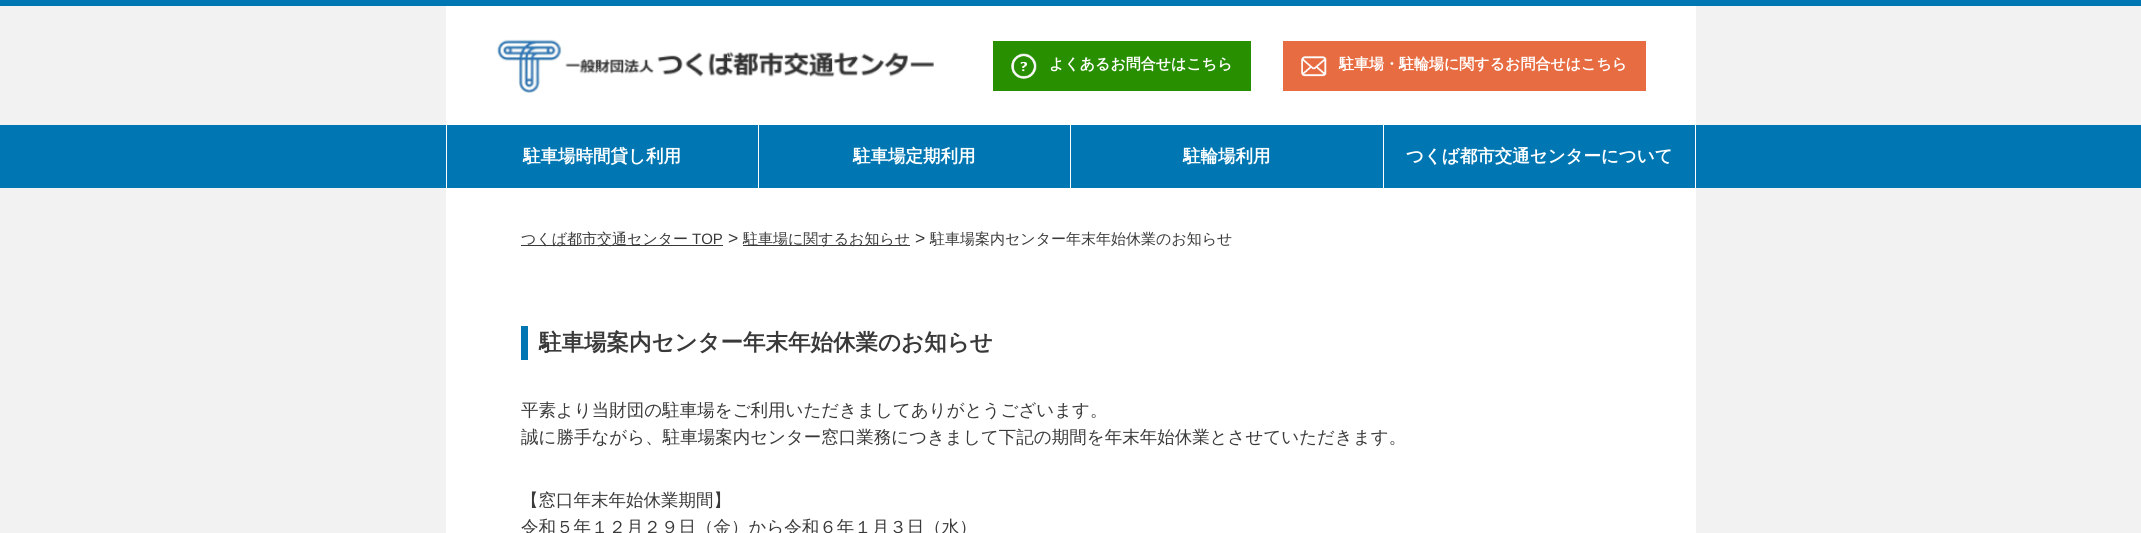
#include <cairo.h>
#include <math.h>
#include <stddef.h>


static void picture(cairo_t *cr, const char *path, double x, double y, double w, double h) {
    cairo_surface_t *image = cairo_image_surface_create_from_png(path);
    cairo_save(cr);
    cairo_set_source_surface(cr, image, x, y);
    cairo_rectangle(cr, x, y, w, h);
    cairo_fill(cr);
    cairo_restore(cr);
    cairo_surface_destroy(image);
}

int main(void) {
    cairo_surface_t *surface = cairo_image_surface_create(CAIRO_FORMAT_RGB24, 2141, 533);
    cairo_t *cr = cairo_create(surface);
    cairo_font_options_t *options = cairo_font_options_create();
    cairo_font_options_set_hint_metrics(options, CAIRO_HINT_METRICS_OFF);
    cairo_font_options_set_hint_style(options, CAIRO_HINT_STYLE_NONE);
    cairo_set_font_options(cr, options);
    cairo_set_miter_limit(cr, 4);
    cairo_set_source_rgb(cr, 0.949, 0.949, 0.949);
    cairo_paint(cr);
    cairo_set_source_rgb(cr, 0, 0.467, 0.702);
    cairo_rectangle(cr, 0, 0, 2141, 6);
    cairo_fill(cr);
    cairo_set_source_rgb(cr, 1, 1, 1);
    cairo_rectangle(cr, 446, 6, 1250, 119);
    cairo_fill(cr);
    picture(cr, "img1.png", 497, 39, 437, 54);
    cairo_set_source_rgb(cr, 0.157, 0.561, 0);
    cairo_rectangle(cr, 993, 41, 258, 50);
    cairo_fill(cr);
    picture(cr, "img2.png", 1011, 53, 26, 26);
    cairo_select_font_face(cr, "WenQuanYi Zen Hei", CAIRO_FONT_SLANT_NORMAL, CAIRO_FONT_WEIGHT_BOLD);
    cairo_set_font_size(cr, 15);
    cairo_set_source_rgb(cr, 1, 1, 1);
    cairo_move_to(cr, 1049, 69);
    cairo_show_text(cr, "よくあるお問合せはこちら");
    cairo_set_source_rgb(cr, 0.91, 0.424, 0.259);
    cairo_rectangle(cr, 1283, 41, 363, 50);
    cairo_fill(cr);
    picture(cr, "img3.png", 1301, 56, 26, 21);
    cairo_set_source_rgb(cr, 1, 1, 1);
    cairo_move_to(cr, 1339, 69);
    cairo_show_text(cr, "駐車場・駐輪場に関するお問合せはこちら");
    cairo_set_source_rgb(cr, 0, 0.467, 0.702);
    cairo_rectangle(cr, 0, 125, 2141, 63);
    cairo_fill(cr);
    cairo_set_source_rgb(cr, 1, 1, 1);
    cairo_rectangle(cr, 1695, 125, 1, 63);
    cairo_fill(cr);
    cairo_rectangle(cr, 446, 125, 1, 63);
    cairo_fill(cr);
    cairo_set_font_size(cr, 17.5);
    cairo_move_to(cr, 523, 162);
    cairo_show_text(cr, "駐車場時間貸し利用");
    cairo_rectangle(cr, 758, 125, 1, 63);
    cairo_fill(cr);
    cairo_move_to(cr, 853, 162);
    cairo_show_text(cr, "駐車場定期利用");
    cairo_rectangle(cr, 1070, 125, 1, 63);
    cairo_fill(cr);
    cairo_move_to(cr, 1183, 162);
    cairo_show_text(cr, "駐輪場利用");
    cairo_rectangle(cr, 1383, 125, 1, 63);
    cairo_fill(cr);
    cairo_move_to(cr, 1406, 162);
    cairo_show_text(cr, "つくば都市交通センターについて");
    cairo_rectangle(cr, 446, 188, 1250, 345);
    cairo_fill(cr);
    cairo_set_source_rgb(cr, 0.224, 0.224, 0.224);
    cairo_rectangle(cr, 521, 245, 202, 1);
    cairo_fill(cr);
    cairo_select_font_face(cr, "WenQuanYi Zen Hei Medium", CAIRO_FONT_SLANT_NORMAL, CAIRO_FONT_WEIGHT_NORMAL);
    cairo_set_font_size(cr, 15);
    cairo_move_to(cr, 521, 244);
    cairo_show_text(cr, "つくば都市交通センター");
    cairo_select_font_face(cr, "Liberation Sans", CAIRO_FONT_SLANT_NORMAL, CAIRO_FONT_WEIGHT_NORMAL);
    cairo_move_to(cr, 692, 244);
    cairo_show_text(cr, "TOP");
    cairo_set_font_size(cr, 17.5);
    cairo_move_to(cr, 728, 244);
    cairo_show_text(cr, ">");
    cairo_rectangle(cr, 743, 245, 167, 1);
    cairo_fill(cr);
    cairo_select_font_face(cr, "WenQuanYi Zen Hei Medium", CAIRO_FONT_SLANT_NORMAL, CAIRO_FONT_WEIGHT_NORMAL);
    cairo_set_font_size(cr, 15);
    cairo_move_to(cr, 743, 244);
    cairo_show_text(cr, "駐車場に関するお知らせ");
    cairo_select_font_face(cr, "Liberation Sans", CAIRO_FONT_SLANT_NORMAL, CAIRO_FONT_WEIGHT_NORMAL);
    cairo_set_font_size(cr, 17.5);
    cairo_move_to(cr, 915, 244);
    cairo_show_text(cr, ">");
    cairo_select_font_face(cr, "WenQuanYi Zen Hei Medium", CAIRO_FONT_SLANT_NORMAL, CAIRO_FONT_WEIGHT_NORMAL);
    cairo_set_font_size(cr, 15);
    cairo_move_to(cr, 930, 244);
    cairo_show_text(cr, "駐車場案内センター年末年始休業のお知らせ");
    cairo_set_source_rgb(cr, 0, 0.467, 0.702);
    cairo_rectangle(cr, 521, 326, 7, 34);
    cairo_fill(cr);
    cairo_select_font_face(cr, "WenQuanYi Zen Hei", CAIRO_FONT_SLANT_NORMAL, CAIRO_FONT_WEIGHT_BOLD);
    cairo_set_font_size(cr, 22.5);
    cairo_set_source_rgb(cr, 0.224, 0.224, 0.224);
    cairo_move_to(cr, 539, 350);
    cairo_show_text(cr, "駐車場案内センター年末年始休業のお知らせ");
    cairo_select_font_face(cr, "WenQuanYi Zen Hei Medium", CAIRO_FONT_SLANT_NORMAL, CAIRO_FONT_WEIGHT_NORMAL);
    cairo_set_font_size(cr, 17.5);
    cairo_move_to(cr, 521, 416);
    cairo_show_text(cr, "平素より当財団の駐車場をご利用いただきましてありがとうございます。");
    cairo_move_to(cr, 521, 443);
    cairo_show_text(cr, "誠に勝手ながら、駐車場案内センター窓口業務につきまして下記の期間を年末年始休業とさせていただきます。");
    cairo_move_to(cr, 521, 506);
    cairo_show_text(cr, "【窓口年末年始休業期間】");
    cairo_move_to(cr, 521, 533);
    cairo_show_text(cr, "令和５年１２月２９日（金）から令和６年１月３日（水）");
    cairo_surface_write_to_png(surface, "page.png");
    cairo_font_options_destroy(options);
    cairo_destroy(cr);
    cairo_surface_destroy(surface);
    return 0;
}
